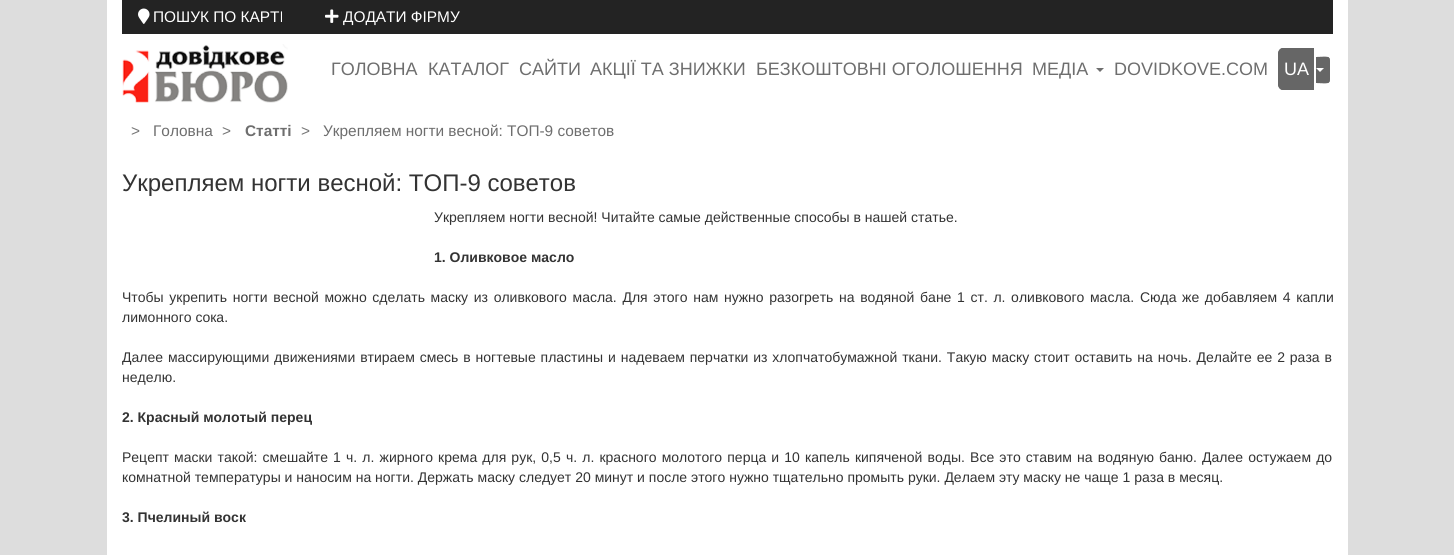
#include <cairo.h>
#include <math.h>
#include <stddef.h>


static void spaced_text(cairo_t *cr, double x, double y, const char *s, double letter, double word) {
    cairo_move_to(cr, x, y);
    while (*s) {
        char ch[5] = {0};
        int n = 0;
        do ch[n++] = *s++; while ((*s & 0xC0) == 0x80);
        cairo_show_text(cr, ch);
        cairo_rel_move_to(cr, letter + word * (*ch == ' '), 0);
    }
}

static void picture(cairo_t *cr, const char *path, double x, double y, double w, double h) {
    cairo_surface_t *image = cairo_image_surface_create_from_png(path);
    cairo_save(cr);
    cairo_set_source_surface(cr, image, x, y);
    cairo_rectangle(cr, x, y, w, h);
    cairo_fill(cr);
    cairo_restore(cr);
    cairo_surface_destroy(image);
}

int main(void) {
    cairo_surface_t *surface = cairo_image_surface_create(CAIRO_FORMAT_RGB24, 1454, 555);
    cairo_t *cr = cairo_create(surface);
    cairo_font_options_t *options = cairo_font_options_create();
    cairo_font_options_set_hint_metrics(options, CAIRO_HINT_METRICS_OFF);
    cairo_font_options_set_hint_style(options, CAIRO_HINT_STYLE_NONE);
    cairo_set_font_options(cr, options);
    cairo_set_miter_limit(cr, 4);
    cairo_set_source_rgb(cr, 0.867, 0.867, 0.867);
    cairo_paint(cr);
    cairo_set_source_rgb(cr, 1, 1, 1);
    cairo_rectangle(cr, 107, 0, 1241, 555);
    cairo_fill(cr);
    cairo_set_source_rgb(cr, 0.137, 0.137, 0.137);
    cairo_rectangle(cr, 122, 0, 1211, 34);
    cairo_fill(cr);
    picture(cr, "img1.png", 138, 8, 12, 16);
    cairo_select_font_face(cr, "Liberation Sans", CAIRO_FONT_SLANT_NORMAL, CAIRO_FONT_WEIGHT_NORMAL);
    cairo_set_font_size(cr, 15.4);
    cairo_set_source_rgb(cr, 1, 1, 1);
    cairo_move_to(cr, 153, 22);
    cairo_show_text(cr, "ПОШУК ПО КАРТІ");
    picture(cr, "img2.png", 325, 9, 14, 14);
    cairo_move_to(cr, 343, 22);
    cairo_show_text(cr, "ДОДАТИ ФІРМУ");
    picture(cr, "img3.png", 122, 44, 166, 59);
    cairo_set_font_size(cr, 18);
    cairo_set_source_rgb(cr, 0.431, 0.431, 0.431);
    cairo_move_to(cr, 331, 75);
    cairo_show_text(cr, "ГОЛОВНА");
    cairo_move_to(cr, 428, 75);
    cairo_show_text(cr, "КАТАЛОГ");
    cairo_move_to(cr, 519, 75);
    cairo_show_text(cr, "САЙТИ");
    cairo_move_to(cr, 590, 75);
    cairo_show_text(cr, "АКЦІЇ ТА ЗНИЖКИ");
    cairo_move_to(cr, 756, 75);
    cairo_show_text(cr, "БЕЗКОШТОВНІ ОГОЛОШЕННЯ");
    cairo_move_to(cr, 1032, 75);
    cairo_show_text(cr, "МЕДІА");
    cairo_new_path(cr);
    cairo_move_to(cr, 1096, 68);
    cairo_line_to(cr, 1104, 68);
    cairo_line_to(cr, 1100, 72);
    cairo_close_path(cr);
    cairo_fill(cr);
    cairo_move_to(cr, 1114, 75);
    cairo_show_text(cr, "DOVIDKOVE.COM");
    cairo_set_source_rgb(cr, 0.4, 0.4, 0.4);
    cairo_new_path(cr);
    cairo_move_to(cr, 1283, 48);
    cairo_line_to(cr, 1314, 48);
    cairo_line_to(cr, 1314, 90);
    cairo_line_to(cr, 1283, 90);
    cairo_curve_to(cr, 1280, 90, 1278, 87, 1278, 84);
    cairo_line_to(cr, 1278, 54);
    cairo_curve_to(cr, 1278, 51, 1280, 48, 1283, 48);
    cairo_close_path(cr);
    cairo_fill(cr);
    cairo_set_fill_rule(cr, CAIRO_FILL_RULE_EVEN_ODD);
    cairo_new_path(cr);
    cairo_move_to(cr, 1283, 48);
    cairo_line_to(cr, 1314, 48);
    cairo_line_to(cr, 1314, 90);
    cairo_line_to(cr, 1283, 90);
    cairo_curve_to(cr, 1280, 90, 1278, 87, 1278, 84);
    cairo_line_to(cr, 1278, 54);
    cairo_curve_to(cr, 1278, 51, 1280, 48, 1283, 48);
    cairo_close_path(cr);
    cairo_move_to(cr, 1283, 49);
    cairo_line_to(cr, 1314, 49);
    cairo_line_to(cr, 1314, 89);
    cairo_line_to(cr, 1283, 89);
    cairo_curve_to(cr, 1281, 89, 1279, 87, 1279, 84);
    cairo_line_to(cr, 1279, 54);
    cairo_curve_to(cr, 1279, 51, 1281, 49, 1283, 49);
    cairo_close_path(cr);
    cairo_fill(cr);
    cairo_set_fill_rule(cr, CAIRO_FILL_RULE_WINDING);
    cairo_new_path(cr);
    cairo_move_to(cr, 1316, 57);
    cairo_curve_to(cr, 1331.5, 57, 1330, 54, 1330, 70);
    cairo_curve_to(cr, 1330, 86, 1331.5, 83, 1316, 83);
    cairo_close_path(cr);
    cairo_fill(cr);
    cairo_set_fill_rule(cr, CAIRO_FILL_RULE_EVEN_ODD);
    cairo_new_path(cr);
    cairo_move_to(cr, 1316, 57);
    cairo_curve_to(cr, 1331.5, 57, 1330, 54, 1330, 70);
    cairo_curve_to(cr, 1330, 86, 1331.5, 83, 1316, 83);
    cairo_close_path(cr);
    cairo_move_to(cr, 1316, 58);
    cairo_line_to(cr, 1328, 58);
    cairo_curve_to(cr, 1328.5, 58, 1329, 59.5, 1329, 61);
    cairo_line_to(cr, 1329, 79);
    cairo_curve_to(cr, 1329, 80.5, 1328.5, 82, 1328, 82);
    cairo_line_to(cr, 1316, 82);
    cairo_close_path(cr);
    cairo_fill(cr);
    cairo_set_source_rgb(cr, 1, 1, 1);
    cairo_move_to(cr, 1284, 75);
    cairo_show_text(cr, "UA");
    cairo_set_fill_rule(cr, CAIRO_FILL_RULE_WINDING);
    cairo_new_path(cr);
    cairo_move_to(cr, 1316, 68);
    cairo_line_to(cr, 1324, 68);
    cairo_line_to(cr, 1320, 72);
    cairo_close_path(cr);
    cairo_fill(cr);
    cairo_set_font_size(cr, 15.4);
    cairo_set_source_rgb(cr, 0.463, 0.463, 0.463);
    cairo_move_to(cr, 131, 136);
    cairo_show_text(cr, ">");
    cairo_set_source_rgb(cr, 0.431, 0.431, 0.431);
    cairo_move_to(cr, 153, 136);
    cairo_show_text(cr, "Головна");
    cairo_set_source_rgb(cr, 0.463, 0.463, 0.463);
    cairo_move_to(cr, 222, 136);
    cairo_show_text(cr, ">");
    cairo_select_font_face(cr, "Liberation Sans", CAIRO_FONT_SLANT_NORMAL, CAIRO_FONT_WEIGHT_BOLD);
    cairo_set_source_rgb(cr, 0.431, 0.431, 0.431);
    cairo_move_to(cr, 245, 136);
    cairo_show_text(cr, "Статті");
    cairo_select_font_face(cr, "Liberation Sans", CAIRO_FONT_SLANT_NORMAL, CAIRO_FONT_WEIGHT_NORMAL);
    cairo_set_source_rgb(cr, 0.463, 0.463, 0.463);
    cairo_move_to(cr, 301, 136);
    cairo_show_text(cr, ">");
    cairo_set_source_rgb(cr, 0.431, 0.431, 0.431);
    cairo_move_to(cr, 323, 136);
    cairo_show_text(cr, "Укрепляем ногти весной: ТОП-9 советов");
    cairo_set_font_size(cr, 24);
    cairo_set_source_rgb(cr, 0.2, 0.2, 0.2);
    cairo_move_to(cr, 122, 191);
    cairo_show_text(cr, "Укрепляем ногти весной: ТОП-9 советов");
    cairo_set_font_size(cr, 14);
    cairo_move_to(cr, 434, 222);
    cairo_show_text(cr, "Укрепляем ногти весной! Читайте самые действенные способы в нашей статье.");
    cairo_select_font_face(cr, "Liberation Sans", CAIRO_FONT_SLANT_NORMAL, CAIRO_FONT_WEIGHT_BOLD);
    cairo_move_to(cr, 434, 262);
    cairo_show_text(cr, "1. Оливковое масло");
    cairo_select_font_face(cr, "Liberation Sans", CAIRO_FONT_SLANT_NORMAL, CAIRO_FONT_WEIGHT_NORMAL);
    spaced_text(cr, 122, 302, "Чтобы укрепить ногти весной можно сделать маску из оливкового масла. Для этого нам нужно разогреть на водяной бане 1 ст. л. оливкового масла. Сюда же добавляем 4 капли", 0, 1.75);
    cairo_move_to(cr, 122, 322);
    cairo_show_text(cr, "лимонного сока.");
    spaced_text(cr, 122, 362, "Далее массирующими движениями втираем смесь в ногтевые пластины и надеваем перчатки из хлопчатобумажной ткани. Такую маску стоит оставить на ночь. Делайте ее 2 раза в", 0, 1);
    cairo_move_to(cr, 122, 382);
    cairo_show_text(cr, "неделю.");
    cairo_select_font_face(cr, "Liberation Sans", CAIRO_FONT_SLANT_NORMAL, CAIRO_FONT_WEIGHT_BOLD);
    cairo_move_to(cr, 122, 422);
    cairo_show_text(cr, "2. Красный молотый перец");
    cairo_select_font_face(cr, "Liberation Sans", CAIRO_FONT_SLANT_NORMAL, CAIRO_FONT_WEIGHT_NORMAL);
    spaced_text(cr, 122, 462, "Рецепт маски такой: смешайте 1 ч. л. жирного крема для рук, 0,5 ч. л. красного молотого перца и 10 капель кипяченой воды. Все это ставим на водяную баню. Далее остужаем до", 0, 1.25);
    cairo_move_to(cr, 122, 482);
    cairo_show_text(cr, "комнатной температуры и наносим на ногти. Держать маску следует 20 минут и после этого нужно тщательно промыть руки. Делаем эту маску не чаще 1 раза в месяц.");
    cairo_select_font_face(cr, "Liberation Sans", CAIRO_FONT_SLANT_NORMAL, CAIRO_FONT_WEIGHT_BOLD);
    cairo_move_to(cr, 122, 522);
    cairo_show_text(cr, "3. Пчелиный воск");
    cairo_surface_write_to_png(surface, "page.png");
    cairo_font_options_destroy(options);
    cairo_destroy(cr);
    cairo_surface_destroy(surface);
    return 0;
}
